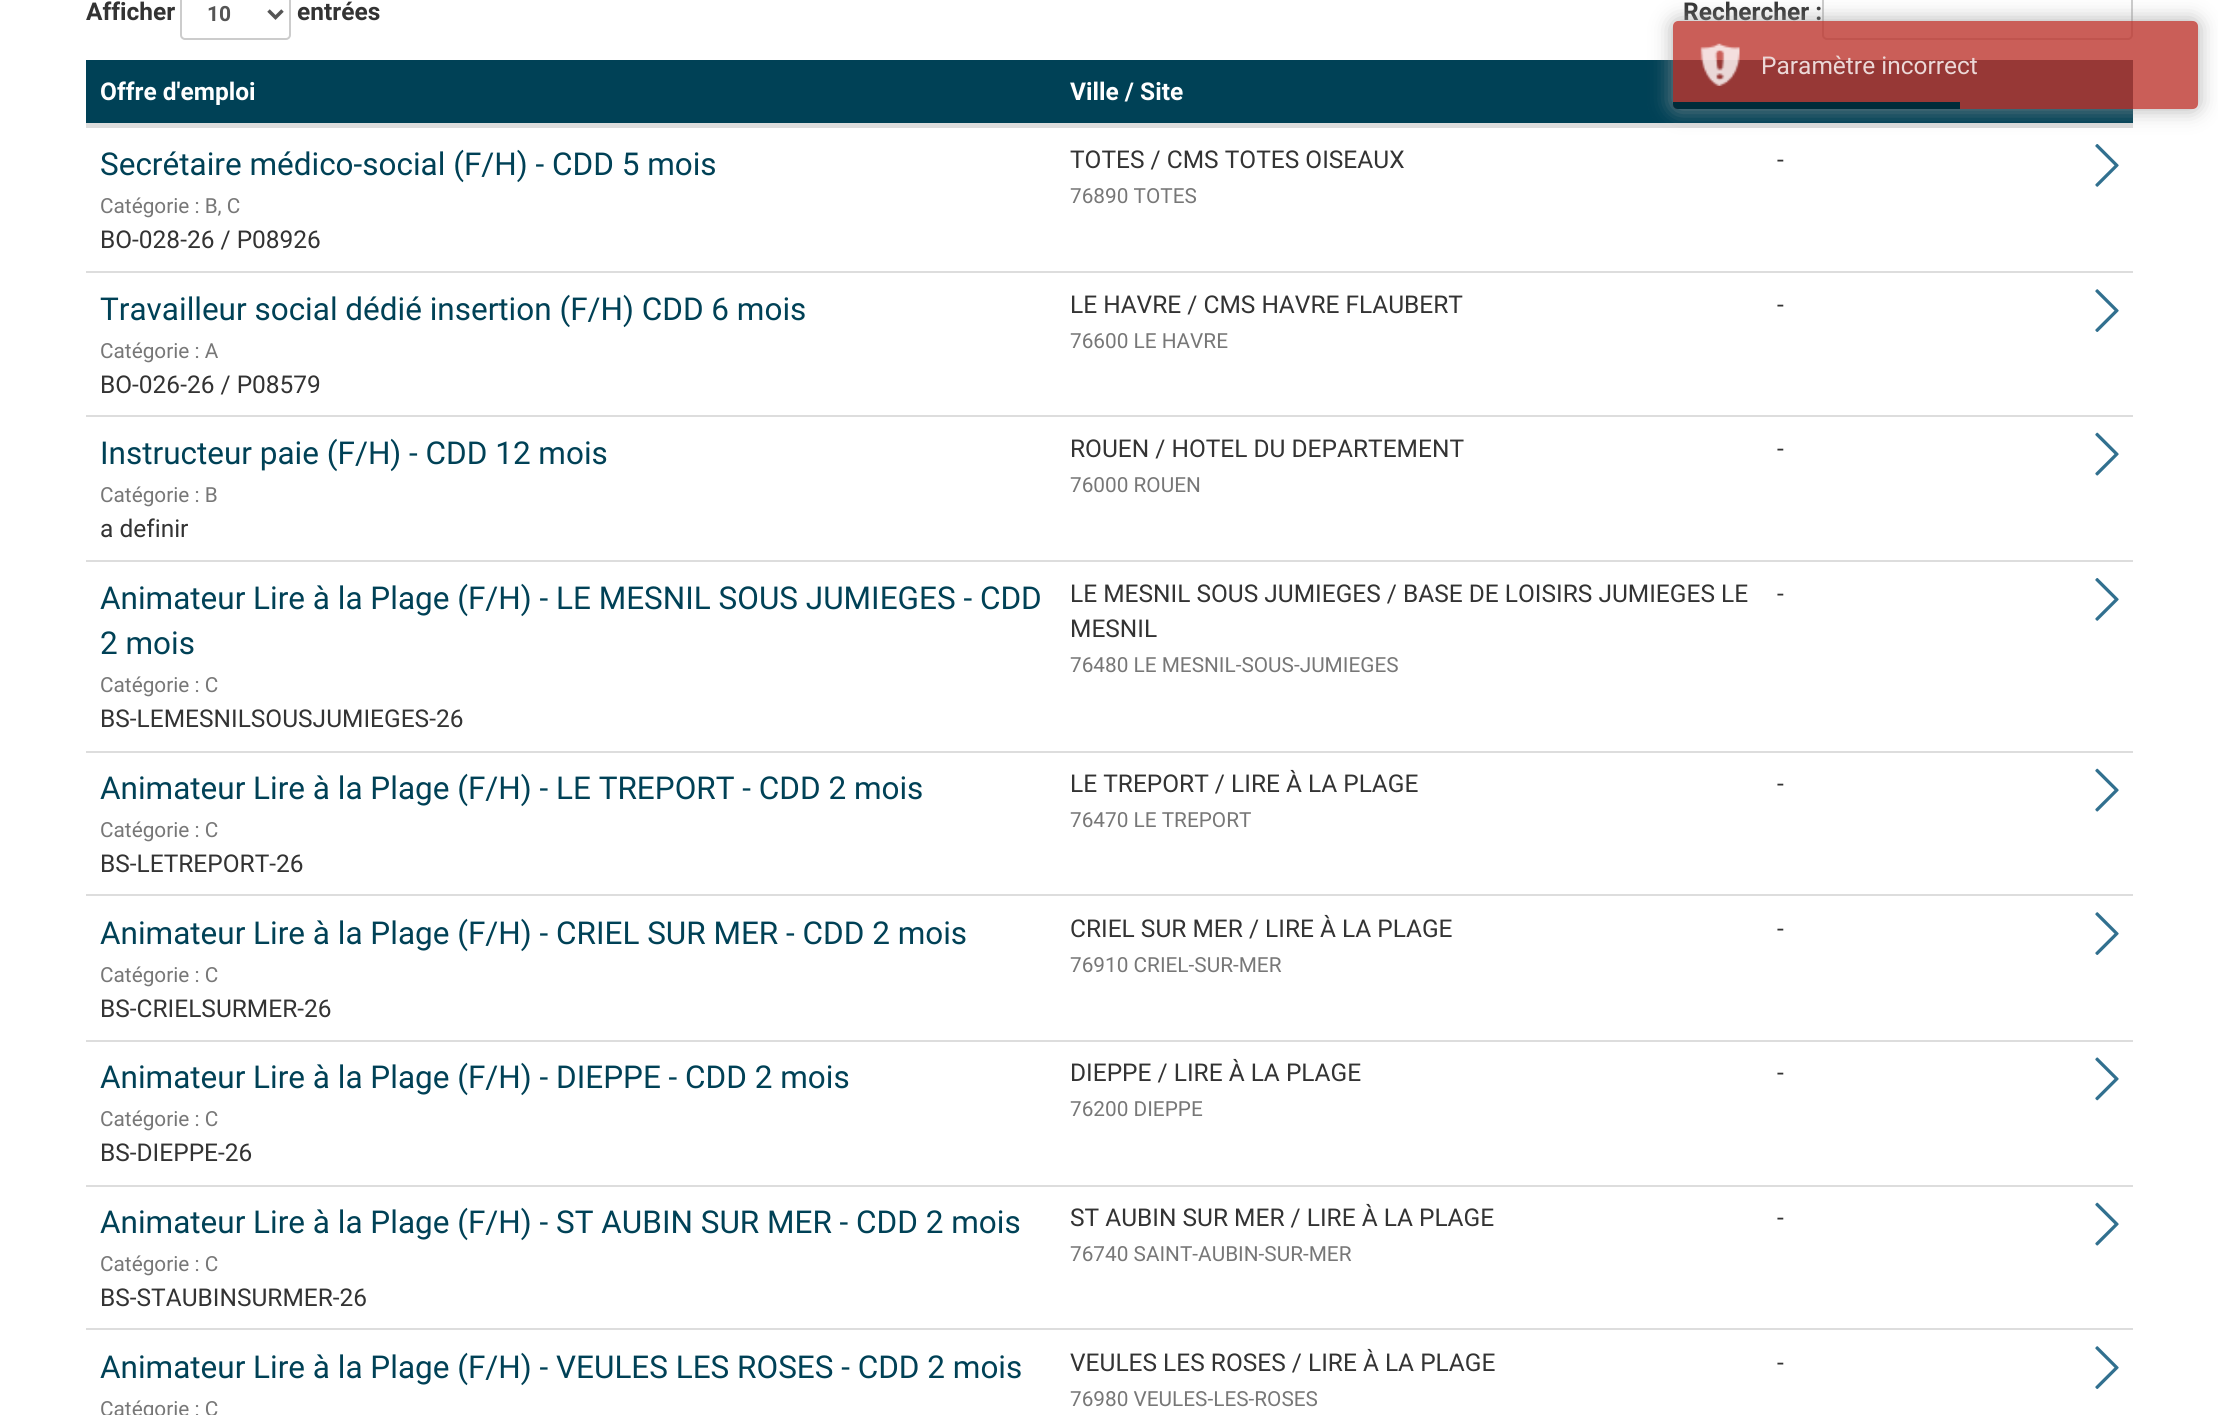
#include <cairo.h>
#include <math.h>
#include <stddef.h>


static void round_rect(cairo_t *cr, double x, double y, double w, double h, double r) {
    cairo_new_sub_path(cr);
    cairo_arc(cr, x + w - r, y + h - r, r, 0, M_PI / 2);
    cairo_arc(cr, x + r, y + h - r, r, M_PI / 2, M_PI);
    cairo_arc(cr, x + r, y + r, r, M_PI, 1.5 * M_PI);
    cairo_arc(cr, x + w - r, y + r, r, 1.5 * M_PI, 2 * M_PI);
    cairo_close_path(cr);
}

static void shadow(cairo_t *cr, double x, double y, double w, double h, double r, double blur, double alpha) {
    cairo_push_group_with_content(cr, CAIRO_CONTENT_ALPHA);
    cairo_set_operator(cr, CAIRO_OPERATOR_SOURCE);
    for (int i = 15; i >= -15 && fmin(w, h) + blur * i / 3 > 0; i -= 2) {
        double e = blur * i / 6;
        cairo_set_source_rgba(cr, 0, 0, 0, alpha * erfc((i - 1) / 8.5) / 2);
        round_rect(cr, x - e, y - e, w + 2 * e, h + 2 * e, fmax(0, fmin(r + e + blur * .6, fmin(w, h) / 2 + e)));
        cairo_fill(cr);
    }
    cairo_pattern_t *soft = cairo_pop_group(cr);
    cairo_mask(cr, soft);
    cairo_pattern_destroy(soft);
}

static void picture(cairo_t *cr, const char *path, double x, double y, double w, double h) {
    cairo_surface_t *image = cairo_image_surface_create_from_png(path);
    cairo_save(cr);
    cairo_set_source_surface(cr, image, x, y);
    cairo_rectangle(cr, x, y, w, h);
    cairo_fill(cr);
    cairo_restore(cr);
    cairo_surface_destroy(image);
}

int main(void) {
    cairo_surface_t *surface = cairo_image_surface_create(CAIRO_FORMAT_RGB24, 2218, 1415);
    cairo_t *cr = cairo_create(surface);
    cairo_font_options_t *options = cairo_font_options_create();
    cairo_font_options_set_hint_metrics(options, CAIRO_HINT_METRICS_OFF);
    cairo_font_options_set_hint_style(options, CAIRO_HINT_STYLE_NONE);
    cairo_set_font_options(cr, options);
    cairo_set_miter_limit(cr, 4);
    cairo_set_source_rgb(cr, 1, 1, 1);
    cairo_paint(cr);
    cairo_select_font_face(cr, "Roboto", CAIRO_FONT_SLANT_NORMAL, CAIRO_FONT_WEIGHT_BOLD);
    cairo_set_font_size(cr, 24.5);
    cairo_set_source_rgb(cr, 0.2, 0.2, 0.2);
    cairo_move_to(cr, 86, 20);
    cairo_show_text(cr, "Afficher");
    round_rect(cr, 181, -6, 109, 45, 4);
    cairo_set_source_rgb(cr, 0.8, 0.8, 0.8);
    cairo_stroke(cr);
    cairo_new_path(cr);
    cairo_move_to(cr, 268.5, 10.5);
    cairo_line_to(cr, 275.5, 17.5);
    cairo_line_to(cr, 282.5, 10.5);
    cairo_set_source_rgb(cr, 0.333, 0.333, 0.333);
    cairo_set_line_width(cr, 3.5);
    cairo_stroke(cr);
    cairo_set_font_size(cr, 21);
    cairo_move_to(cr, 207, 21);
    cairo_show_text(cr, "10");
    cairo_set_font_size(cr, 24.5);
    cairo_set_source_rgb(cr, 0.2, 0.2, 0.2);
    cairo_move_to(cr, 297, 20);
    cairo_show_text(cr, "entrées");
    cairo_move_to(cr, 1683, 20);
    cairo_show_text(cr, "Rechercher :");
    round_rect(cr, 1823, -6, 309, 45, 4);
    cairo_set_source_rgb(cr, 0.8, 0.8, 0.8);
    cairo_set_line_width(cr, 2);
    cairo_stroke(cr);
    cairo_set_source_rgb(cr, 0, 0.255, 0.337);
    cairo_rectangle(cr, 86, 60, 2047, 63);
    cairo_fill(cr);
    cairo_set_source_rgb(cr, 0.867, 0.867, 0.867);
    cairo_rectangle(cr, 86, 123, 2047, 3);
    cairo_fill(cr);
    cairo_set_source_rgb(cr, 1, 1, 1);
    cairo_move_to(cr, 100, 100);
    cairo_show_text(cr, "Offre d'emploi");
    cairo_move_to(cr, 1070, 100);
    cairo_show_text(cr, "Ville / Site");
    cairo_set_source_rgb(cr, 0.867, 0.867, 0.867);
    cairo_rectangle(cr, 86, 126, 2047, 2);
    cairo_fill(cr);
    cairo_select_font_face(cr, "Roboto", CAIRO_FONT_SLANT_NORMAL, CAIRO_FONT_WEIGHT_NORMAL);
    cairo_set_font_size(cr, 31.5);
    cairo_set_source_rgb(cr, 0, 0.255, 0.337);
    cairo_move_to(cr, 100, 175);
    cairo_show_text(cr, "Secrétaire médico-social (F/H) - CDD 5 mois");
    cairo_set_font_size(cr, 20.8);
    cairo_set_source_rgb(cr, 0.467, 0.467, 0.467);
    cairo_move_to(cr, 100, 213);
    cairo_show_text(cr, "Catégorie : B, C");
    cairo_set_font_size(cr, 24.5);
    cairo_set_source_rgb(cr, 0.2, 0.2, 0.2);
    cairo_move_to(cr, 100, 248);
    cairo_show_text(cr, "BO-028-26 / P08926");
    cairo_move_to(cr, 1070, 168);
    cairo_show_text(cr, "TOTES / CMS TOTES OISEAUX");
    cairo_set_font_size(cr, 20.8);
    cairo_set_source_rgb(cr, 0.467, 0.467, 0.467);
    cairo_move_to(cr, 1070, 203);
    cairo_show_text(cr, "76890 TOTES");
    cairo_set_font_size(cr, 24.5);
    cairo_set_source_rgb(cr, 0.2, 0.2, 0.2);
    cairo_move_to(cr, 1777, 168);
    cairo_show_text(cr, "-");
    picture(cr, "img1.png", 2095, 144, 24, 43);
    cairo_set_source_rgb(cr, 0.867, 0.867, 0.867);
    cairo_rectangle(cr, 86, 271, 2047, 2);
    cairo_fill(cr);
    cairo_set_font_size(cr, 31.5);
    cairo_set_source_rgb(cr, 0, 0.255, 0.337);
    cairo_move_to(cr, 100, 320);
    cairo_show_text(cr, "Travailleur social dédié insertion (F/H) CDD 6 mois");
    cairo_set_font_size(cr, 20.8);
    cairo_set_source_rgb(cr, 0.467, 0.467, 0.467);
    cairo_move_to(cr, 100, 358);
    cairo_show_text(cr, "Catégorie : A");
    cairo_set_font_size(cr, 24.5);
    cairo_set_source_rgb(cr, 0.2, 0.2, 0.2);
    cairo_move_to(cr, 100, 393);
    cairo_show_text(cr, "BO-026-26 / P08579");
    cairo_move_to(cr, 1070, 313);
    cairo_show_text(cr, "LE HAVRE / CMS HAVRE FLAUBERT");
    cairo_set_font_size(cr, 20.8);
    cairo_set_source_rgb(cr, 0.467, 0.467, 0.467);
    cairo_move_to(cr, 1070, 348);
    cairo_show_text(cr, "76600 LE HAVRE");
    cairo_set_font_size(cr, 24.5);
    cairo_set_source_rgb(cr, 0.2, 0.2, 0.2);
    cairo_move_to(cr, 1777, 313);
    cairo_show_text(cr, "-");
    picture(cr, "img2.png", 2095, 289, 24, 43);
    cairo_set_source_rgb(cr, 0.867, 0.867, 0.867);
    cairo_rectangle(cr, 86, 415, 2047, 2);
    cairo_fill(cr);
    cairo_set_font_size(cr, 31.5);
    cairo_set_source_rgb(cr, 0, 0.255, 0.337);
    cairo_move_to(cr, 100, 464);
    cairo_show_text(cr, "Instructeur paie (F/H) - CDD 12 mois");
    cairo_set_font_size(cr, 20.8);
    cairo_set_source_rgb(cr, 0.467, 0.467, 0.467);
    cairo_move_to(cr, 100, 502);
    cairo_show_text(cr, "Catégorie : B");
    cairo_set_font_size(cr, 24.5);
    cairo_set_source_rgb(cr, 0.2, 0.2, 0.2);
    cairo_move_to(cr, 100, 537);
    cairo_show_text(cr, "a definir");
    cairo_move_to(cr, 1070, 457);
    cairo_show_text(cr, "ROUEN / HOTEL DU DEPARTEMENT");
    cairo_set_font_size(cr, 20.8);
    cairo_set_source_rgb(cr, 0.467, 0.467, 0.467);
    cairo_move_to(cr, 1070, 492);
    cairo_show_text(cr, "76000 ROUEN");
    cairo_set_font_size(cr, 24.5);
    cairo_set_source_rgb(cr, 0.2, 0.2, 0.2);
    cairo_move_to(cr, 1777, 457);
    cairo_show_text(cr, "-");
    picture(cr, "img3.png", 2095, 432, 24, 44);
    cairo_set_source_rgb(cr, 0.867, 0.867, 0.867);
    cairo_rectangle(cr, 86, 560, 2047, 2);
    cairo_fill(cr);
    cairo_set_font_size(cr, 31.5);
    cairo_set_source_rgb(cr, 0, 0.255, 0.337);
    cairo_move_to(cr, 100, 609);
    cairo_show_text(cr, "Animateur Lire à la Plage (F/H) - LE MESNIL SOUS JUMIEGES - CDD");
    cairo_move_to(cr, 100, 654);
    cairo_show_text(cr, "2 mois");
    cairo_set_font_size(cr, 20.8);
    cairo_set_source_rgb(cr, 0.467, 0.467, 0.467);
    cairo_move_to(cr, 100, 692);
    cairo_show_text(cr, "Catégorie : C");
    cairo_set_font_size(cr, 24.5);
    cairo_set_source_rgb(cr, 0.2, 0.2, 0.2);
    cairo_move_to(cr, 100, 727);
    cairo_show_text(cr, "BS-LEMESNILSOUSJUMIEGES-26");
    cairo_move_to(cr, 1070, 602);
    cairo_show_text(cr, "LE MESNIL SOUS JUMIEGES / BASE DE LOISIRS JUMIEGES LE");
    cairo_move_to(cr, 1070, 637);
    cairo_show_text(cr, "MESNIL");
    cairo_set_font_size(cr, 20.8);
    cairo_set_source_rgb(cr, 0.467, 0.467, 0.467);
    cairo_move_to(cr, 1070, 672);
    cairo_show_text(cr, "76480 LE MESNIL-SOUS-JUMIEGES");
    cairo_set_font_size(cr, 24.5);
    cairo_set_source_rgb(cr, 0.2, 0.2, 0.2);
    cairo_move_to(cr, 1777, 602);
    cairo_show_text(cr, "-");
    picture(cr, "img1.png", 2095, 578, 24, 43);
    cairo_set_source_rgb(cr, 0.867, 0.867, 0.867);
    cairo_rectangle(cr, 86, 751, 2047, 2);
    cairo_fill(cr);
    cairo_set_font_size(cr, 31.5);
    cairo_set_source_rgb(cr, 0, 0.255, 0.337);
    cairo_move_to(cr, 100, 799);
    cairo_show_text(cr, "Animateur Lire à la Plage (F/H) - LE TREPORT - CDD 2 mois");
    cairo_set_font_size(cr, 20.8);
    cairo_set_source_rgb(cr, 0.467, 0.467, 0.467);
    cairo_move_to(cr, 100, 837);
    cairo_show_text(cr, "Catégorie : C");
    cairo_set_font_size(cr, 24.5);
    cairo_set_source_rgb(cr, 0.2, 0.2, 0.2);
    cairo_move_to(cr, 100, 872);
    cairo_show_text(cr, "BS-LETREPORT-26");
    cairo_move_to(cr, 1070, 792);
    cairo_show_text(cr, "LE TREPORT / LIRE À LA PLAGE");
    cairo_set_font_size(cr, 20.8);
    cairo_set_source_rgb(cr, 0.467, 0.467, 0.467);
    cairo_move_to(cr, 1070, 827);
    cairo_show_text(cr, "76470 LE TREPORT");
    cairo_set_font_size(cr, 24.5);
    cairo_set_source_rgb(cr, 0.2, 0.2, 0.2);
    cairo_move_to(cr, 1777, 792);
    cairo_show_text(cr, "-");
    picture(cr, "img3.png", 2095, 768, 24, 44);
    cairo_set_source_rgb(cr, 0.867, 0.867, 0.867);
    cairo_rectangle(cr, 86, 894, 2047, 2);
    cairo_fill(cr);
    cairo_set_font_size(cr, 31.5);
    cairo_set_source_rgb(cr, 0, 0.255, 0.337);
    cairo_move_to(cr, 100, 944);
    cairo_show_text(cr, "Animateur Lire à la Plage (F/H) - CRIEL SUR MER - CDD 2 mois");
    cairo_set_font_size(cr, 20.8);
    cairo_set_source_rgb(cr, 0.467, 0.467, 0.467);
    cairo_move_to(cr, 100, 982);
    cairo_show_text(cr, "Catégorie : C");
    cairo_set_font_size(cr, 24.5);
    cairo_set_source_rgb(cr, 0.2, 0.2, 0.2);
    cairo_move_to(cr, 100, 1017);
    cairo_show_text(cr, "BS-CRIELSURMER-26");
    cairo_move_to(cr, 1070, 937);
    cairo_show_text(cr, "CRIEL SUR MER / LIRE À LA PLAGE");
    cairo_set_font_size(cr, 20.8);
    cairo_set_source_rgb(cr, 0.467, 0.467, 0.467);
    cairo_move_to(cr, 1070, 972);
    cairo_show_text(cr, "76910 CRIEL-SUR-MER");
    cairo_set_font_size(cr, 24.5);
    cairo_set_source_rgb(cr, 0.2, 0.2, 0.2);
    cairo_move_to(cr, 1777, 937);
    cairo_show_text(cr, "-");
    picture(cr, "img2.png", 2095, 912, 24, 43);
    cairo_set_source_rgb(cr, 0.867, 0.867, 0.867);
    cairo_rectangle(cr, 86, 1040, 2047, 2);
    cairo_fill(cr);
    cairo_set_font_size(cr, 31.5);
    cairo_set_source_rgb(cr, 0, 0.255, 0.337);
    cairo_move_to(cr, 100, 1088);
    cairo_show_text(cr, "Animateur Lire à la Plage (F/H) - DIEPPE - CDD 2 mois");
    cairo_set_font_size(cr, 20.8);
    cairo_set_source_rgb(cr, 0.467, 0.467, 0.467);
    cairo_move_to(cr, 100, 1126);
    cairo_show_text(cr, "Catégorie : C");
    cairo_set_font_size(cr, 24.5);
    cairo_set_source_rgb(cr, 0.2, 0.2, 0.2);
    cairo_move_to(cr, 100, 1161);
    cairo_show_text(cr, "BS-DIEPPE-26");
    cairo_move_to(cr, 1070, 1081);
    cairo_show_text(cr, "DIEPPE / LIRE À LA PLAGE");
    cairo_set_font_size(cr, 20.8);
    cairo_set_source_rgb(cr, 0.467, 0.467, 0.467);
    cairo_move_to(cr, 1070, 1116);
    cairo_show_text(cr, "76200 DIEPPE");
    cairo_set_font_size(cr, 24.5);
    cairo_set_source_rgb(cr, 0.2, 0.2, 0.2);
    cairo_move_to(cr, 1777, 1081);
    cairo_show_text(cr, "-");
    picture(cr, "img4.png", 2095, 1057, 24, 44);
    cairo_set_source_rgb(cr, 0.867, 0.867, 0.867);
    cairo_rectangle(cr, 86, 1185, 2047, 2);
    cairo_fill(cr);
    cairo_set_font_size(cr, 31.5);
    cairo_set_source_rgb(cr, 0, 0.255, 0.337);
    cairo_move_to(cr, 100, 1233);
    cairo_show_text(cr, "Animateur Lire à la Plage (F/H) - ST AUBIN SUR MER - CDD 2 mois");
    cairo_set_font_size(cr, 20.8);
    cairo_set_source_rgb(cr, 0.467, 0.467, 0.467);
    cairo_move_to(cr, 100, 1271);
    cairo_show_text(cr, "Catégorie : C");
    cairo_set_font_size(cr, 24.5);
    cairo_set_source_rgb(cr, 0.2, 0.2, 0.2);
    cairo_move_to(cr, 100, 1306);
    cairo_show_text(cr, "BS-STAUBINSURMER-26");
    cairo_move_to(cr, 1070, 1226);
    cairo_show_text(cr, "ST AUBIN SUR MER / LIRE À LA PLAGE");
    cairo_set_font_size(cr, 20.8);
    cairo_set_source_rgb(cr, 0.467, 0.467, 0.467);
    cairo_move_to(cr, 1070, 1261);
    cairo_show_text(cr, "76740 SAINT-AUBIN-SUR-MER");
    cairo_set_font_size(cr, 24.5);
    cairo_set_source_rgb(cr, 0.2, 0.2, 0.2);
    cairo_move_to(cr, 1777, 1226);
    cairo_show_text(cr, "-");
    picture(cr, "img3.png", 2095, 1202, 24, 44);
    cairo_set_source_rgb(cr, 0.867, 0.867, 0.867);
    cairo_rectangle(cr, 86, 1328, 2047, 2);
    cairo_fill(cr);
    cairo_set_font_size(cr, 31.5);
    cairo_set_source_rgb(cr, 0, 0.255, 0.337);
    cairo_move_to(cr, 100, 1378);
    cairo_show_text(cr, "Animateur Lire à la Plage (F/H) - VEULES LES ROSES - CDD 2 mois");
    cairo_set_font_size(cr, 20.8);
    cairo_set_source_rgb(cr, 0.467, 0.467, 0.467);
    cairo_move_to(cr, 100, 1416);
    cairo_show_text(cr, "Catégorie : C");
    cairo_set_font_size(cr, 24.5);
    cairo_set_source_rgb(cr, 0.2, 0.2, 0.2);
    cairo_move_to(cr, 1070, 1371);
    cairo_show_text(cr, "VEULES LES ROSES / LIRE À LA PLAGE");
    cairo_set_font_size(cr, 20.8);
    cairo_set_source_rgb(cr, 0.467, 0.467, 0.467);
    cairo_move_to(cr, 1070, 1406);
    cairo_show_text(cr, "76980 VEULES-LES-ROSES");
    cairo_set_font_size(cr, 24.5);
    cairo_set_source_rgb(cr, 0.2, 0.2, 0.2);
    cairo_move_to(cr, 1777, 1371);
    cairo_show_text(cr, "-");
    picture(cr, "img2.png", 2095, 1346, 24, 43);
    cairo_save(cr);
    cairo_set_fill_rule(cr, CAIRO_FILL_RULE_EVEN_ODD);
    cairo_new_path(cr);
    cairo_move_to(cr, 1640, 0);
    cairo_line_to(cr, 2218, 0);
    cairo_line_to(cr, 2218, 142);
    cairo_line_to(cr, 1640, 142);
    cairo_close_path(cr);
    cairo_move_to(cr, 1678, 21);
    cairo_line_to(cr, 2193, 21);
    cairo_curve_to(cr, 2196, 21, 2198, 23, 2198, 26);
    cairo_line_to(cr, 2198, 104);
    cairo_curve_to(cr, 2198, 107, 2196, 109, 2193, 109);
    cairo_line_to(cr, 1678, 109);
    cairo_curve_to(cr, 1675, 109, 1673, 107, 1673, 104);
    cairo_line_to(cr, 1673, 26);
    cairo_curve_to(cr, 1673, 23, 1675, 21, 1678, 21);
    cairo_close_path(cr);
    cairo_clip(cr);
    cairo_set_source_rgb(cr, 0.6, 0.6, 0.6);
    shadow(cr, 1673, 21, 525, 88, 5, 10.5, 0.8);
    cairo_restore(cr);
    cairo_set_source_rgba(cr, 0.741, 0.212, 0.184, 0.8);
    round_rect(cr, 1673, 21, 525, 88, 5);
    cairo_fill(cr);
    picture(cr, "img5.png", 1700, 43, 40, 43);
    cairo_set_source_rgb(cr, 0.922, 0.847, 0.843);
    cairo_move_to(cr, 1761, 74);
    cairo_show_text(cr, "Paramètre incorrect");
    cairo_set_source_rgb(cr, 0, 0.173, 0.227);
    cairo_new_path(cr);
    cairo_move_to(cr, 1673, 102);
    cairo_line_to(cr, 1960, 102);
    cairo_line_to(cr, 1960, 109);
    cairo_line_to(cr, 1678, 109);
    cairo_curve_to(cr, 1675, 109, 1673, 107, 1673, 104);
    cairo_close_path(cr);
    cairo_fill(cr);
    cairo_surface_write_to_png(surface, "page.png");
    cairo_font_options_destroy(options);
    cairo_destroy(cr);
    cairo_surface_destroy(surface);
    return 0;
}
